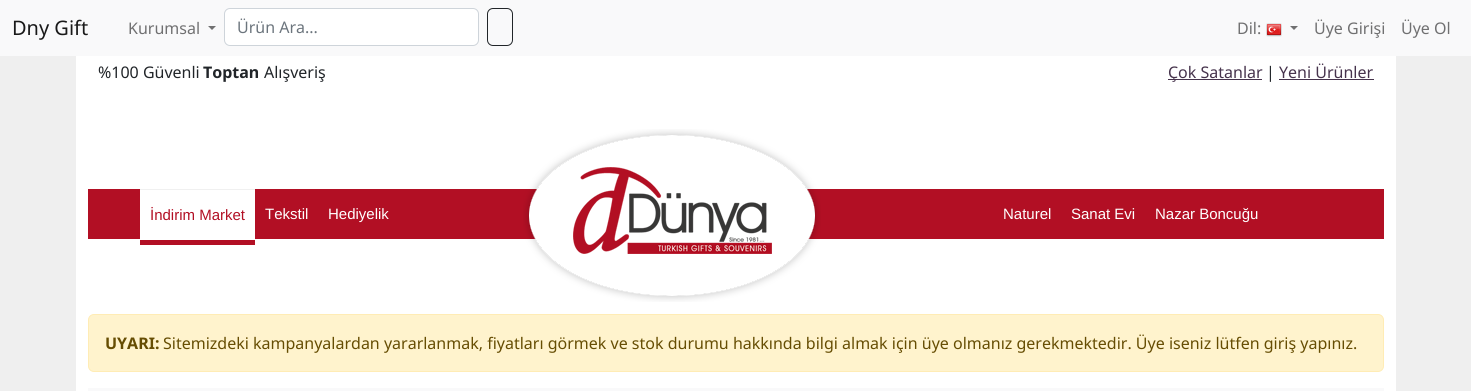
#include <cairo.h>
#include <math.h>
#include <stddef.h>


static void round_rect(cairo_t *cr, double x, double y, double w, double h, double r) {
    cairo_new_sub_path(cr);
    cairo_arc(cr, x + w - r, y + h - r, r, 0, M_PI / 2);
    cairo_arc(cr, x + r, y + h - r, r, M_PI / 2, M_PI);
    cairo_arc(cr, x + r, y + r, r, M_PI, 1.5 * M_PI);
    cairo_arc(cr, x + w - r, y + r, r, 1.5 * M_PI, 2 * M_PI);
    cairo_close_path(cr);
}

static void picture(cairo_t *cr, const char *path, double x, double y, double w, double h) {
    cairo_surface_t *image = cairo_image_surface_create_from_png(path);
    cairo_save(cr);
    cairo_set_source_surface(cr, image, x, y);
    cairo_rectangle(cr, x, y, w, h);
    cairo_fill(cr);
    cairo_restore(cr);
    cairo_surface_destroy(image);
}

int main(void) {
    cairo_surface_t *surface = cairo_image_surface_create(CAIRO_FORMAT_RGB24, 1471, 391);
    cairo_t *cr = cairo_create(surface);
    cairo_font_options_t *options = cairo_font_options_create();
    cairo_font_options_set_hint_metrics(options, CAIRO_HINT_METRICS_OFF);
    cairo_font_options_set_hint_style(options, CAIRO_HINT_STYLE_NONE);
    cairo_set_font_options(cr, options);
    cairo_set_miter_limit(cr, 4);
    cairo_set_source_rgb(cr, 0.937, 0.937, 0.937);
    cairo_paint(cr);
    cairo_set_source_rgb(cr, 0.973, 0.976, 0.98);
    cairo_rectangle(cr, 0, 0, 1471, 56);
    cairo_fill(cr);
    cairo_select_font_face(cr, "Noto Sans", CAIRO_FONT_SLANT_NORMAL, CAIRO_FONT_WEIGHT_NORMAL);
    cairo_set_font_size(cr, 20);
    cairo_set_source_rgb(cr, 0.098, 0.098, 0.098);
    cairo_move_to(cr, 12, 35);
    cairo_show_text(cr, "Dny Gift");
    cairo_set_font_size(cr, 16);
    cairo_set_source_rgb(cr, 0.439, 0.439, 0.443);
    cairo_move_to(cr, 128, 34);
    cairo_show_text(cr, "Kurumsal");
    cairo_new_path(cr);
    cairo_move_to(cr, 208, 26);
    cairo_line_to(cr, 216, 26);
    cairo_line_to(cr, 212, 30);
    cairo_close_path(cr);
    cairo_fill(cr);
    cairo_set_source_rgb(cr, 1, 1, 1);
    round_rect(cr, 224.5, 8.5, 254, 37, 5.5);
    cairo_fill_preserve(cr);
    cairo_set_source_rgb(cr, 0.808, 0.831, 0.855);
    cairo_set_line_width(cr, 1);
    cairo_stroke(cr);
    cairo_set_source_rgb(cr, 0.424, 0.459, 0.49);
    cairo_move_to(cr, 237, 33);
    cairo_show_text(cr, "Ürün Ara...");
    round_rect(cr, 487.5, 8.5, 25, 37, 5.5);
    cairo_set_source_rgb(cr, 0.129, 0.145, 0.161);
    cairo_stroke(cr);
    cairo_set_source_rgb(cr, 0.439, 0.439, 0.443);
    cairo_move_to(cr, 1237, 34);
    cairo_show_text(cr, "Dil:");
    picture(cr, "img1.png", 1266, 23, 16, 14);
    cairo_new_path(cr);
    cairo_move_to(cr, 1290, 26);
    cairo_line_to(cr, 1298, 26);
    cairo_line_to(cr, 1294, 30);
    cairo_close_path(cr);
    cairo_fill(cr);
    cairo_move_to(cr, 1314, 34);
    cairo_show_text(cr, "Üye Girişi");
    cairo_move_to(cr, 1401, 34);
    cairo_show_text(cr, "Üye Ol");
    cairo_set_source_rgb(cr, 1, 1, 1);
    cairo_rectangle(cr, 76, 56, 1320, 335);
    cairo_fill(cr);
    cairo_set_source_rgb(cr, 0.129, 0.145, 0.161);
    cairo_move_to(cr, 98, 78);
    cairo_show_text(cr, "%100 Güvenli");
    cairo_select_font_face(cr, "Noto Sans", CAIRO_FONT_SLANT_NORMAL, CAIRO_FONT_WEIGHT_BOLD);
    cairo_move_to(cr, 203, 78);
    cairo_show_text(cr, "Toptan");
    cairo_select_font_face(cr, "Noto Sans", CAIRO_FONT_SLANT_NORMAL, CAIRO_FONT_WEIGHT_NORMAL);
    cairo_move_to(cr, 264, 78);
    cairo_show_text(cr, "Alışveriş");
    cairo_set_source_rgb(cr, 0.275, 0.2, 0.298);
    cairo_rectangle(cr, 1168, 79, 94, 1);
    cairo_fill(cr);
    cairo_move_to(cr, 1168, 78);
    cairo_show_text(cr, "Çok Satanlar");
    cairo_set_source_rgb(cr, 0.129, 0.145, 0.161);
    cairo_move_to(cr, 1266, 78);
    cairo_show_text(cr, "|");
    cairo_set_source_rgb(cr, 0.275, 0.2, 0.298);
    cairo_move_to(cr, 1279, 78);
    cairo_show_text(cr, "Yeni Ürünler");
    cairo_rectangle(cr, 1279, 79, 95, 1);
    cairo_fill(cr);
    cairo_set_source_rgb(cr, 0.698, 0.059, 0.141);
    cairo_rectangle(cr, 88, 189, 1296, 50);
    cairo_fill(cr);
    cairo_set_source_rgb(cr, 1, 1, 1);
    cairo_rectangle(cr, 140, 190, 115, 49);
    cairo_fill(cr);
    cairo_set_source_rgb(cr, 0.941, 0.941, 0.941);
    cairo_rectangle(cr, 140, 189, 115, 1);
    cairo_fill(cr);
    cairo_set_source_rgb(cr, 0.698, 0.059, 0.141);
    cairo_rectangle(cr, 140, 240, 115, 5);
    cairo_fill(cr);
    cairo_select_font_face(cr, "Liberation Sans", CAIRO_FONT_SLANT_NORMAL, CAIRO_FONT_WEIGHT_NORMAL);
    cairo_set_font_size(cr, 15);
    cairo_move_to(cr, 150, 220);
    cairo_show_text(cr, "İndirim Market");
    cairo_set_source_rgb(cr, 1, 1, 1);
    cairo_move_to(cr, 265, 219);
    cairo_show_text(cr, "Tekstil");
    cairo_move_to(cr, 328, 219);
    cairo_show_text(cr, "Hediyelik");
    picture(cr, "img2.png", 523, 129, 298, 173);
    cairo_move_to(cr, 1003, 219);
    cairo_show_text(cr, "Naturel");
    cairo_move_to(cr, 1071, 219);
    cairo_show_text(cr, "Sanat Evi");
    cairo_move_to(cr, 1155, 219);
    cairo_show_text(cr, "Nazar Boncuğu");
    cairo_set_source_rgb(cr, 1, 0.953, 0.804);
    round_rect(cr, 88.5, 314.5, 1295, 57, 5.5);
    cairo_fill_preserve(cr);
    cairo_set_source_rgb(cr, 1, 0.925, 0.71);
    cairo_stroke(cr);
    cairo_select_font_face(cr, "Noto Sans", CAIRO_FONT_SLANT_NORMAL, CAIRO_FONT_WEIGHT_BOLD);
    cairo_set_font_size(cr, 16);
    cairo_set_source_rgb(cr, 0.4, 0.302, 0.012);
    cairo_move_to(cr, 105, 349);
    cairo_show_text(cr, "UYARI:");
    cairo_select_font_face(cr, "Noto Sans", CAIRO_FONT_SLANT_NORMAL, CAIRO_FONT_WEIGHT_NORMAL);
    cairo_move_to(cr, 163, 349);
    cairo_show_text(cr, "Sitemizdeki kampanyalardan yararlanmak, fiyatları görmek ve stok durumu hakkında bilgi almak için üye olmanız gerekmektedir. Üye iseniz lütfen giriş yapınız.");
    cairo_set_source_rgb(cr, 0.973, 0.976, 0.98);
    cairo_rectangle(cr, 88, 388, 1296, 3);
    cairo_fill(cr);
    cairo_surface_write_to_png(surface, "page.png");
    cairo_font_options_destroy(options);
    cairo_destroy(cr);
    cairo_surface_destroy(surface);
    return 0;
}
